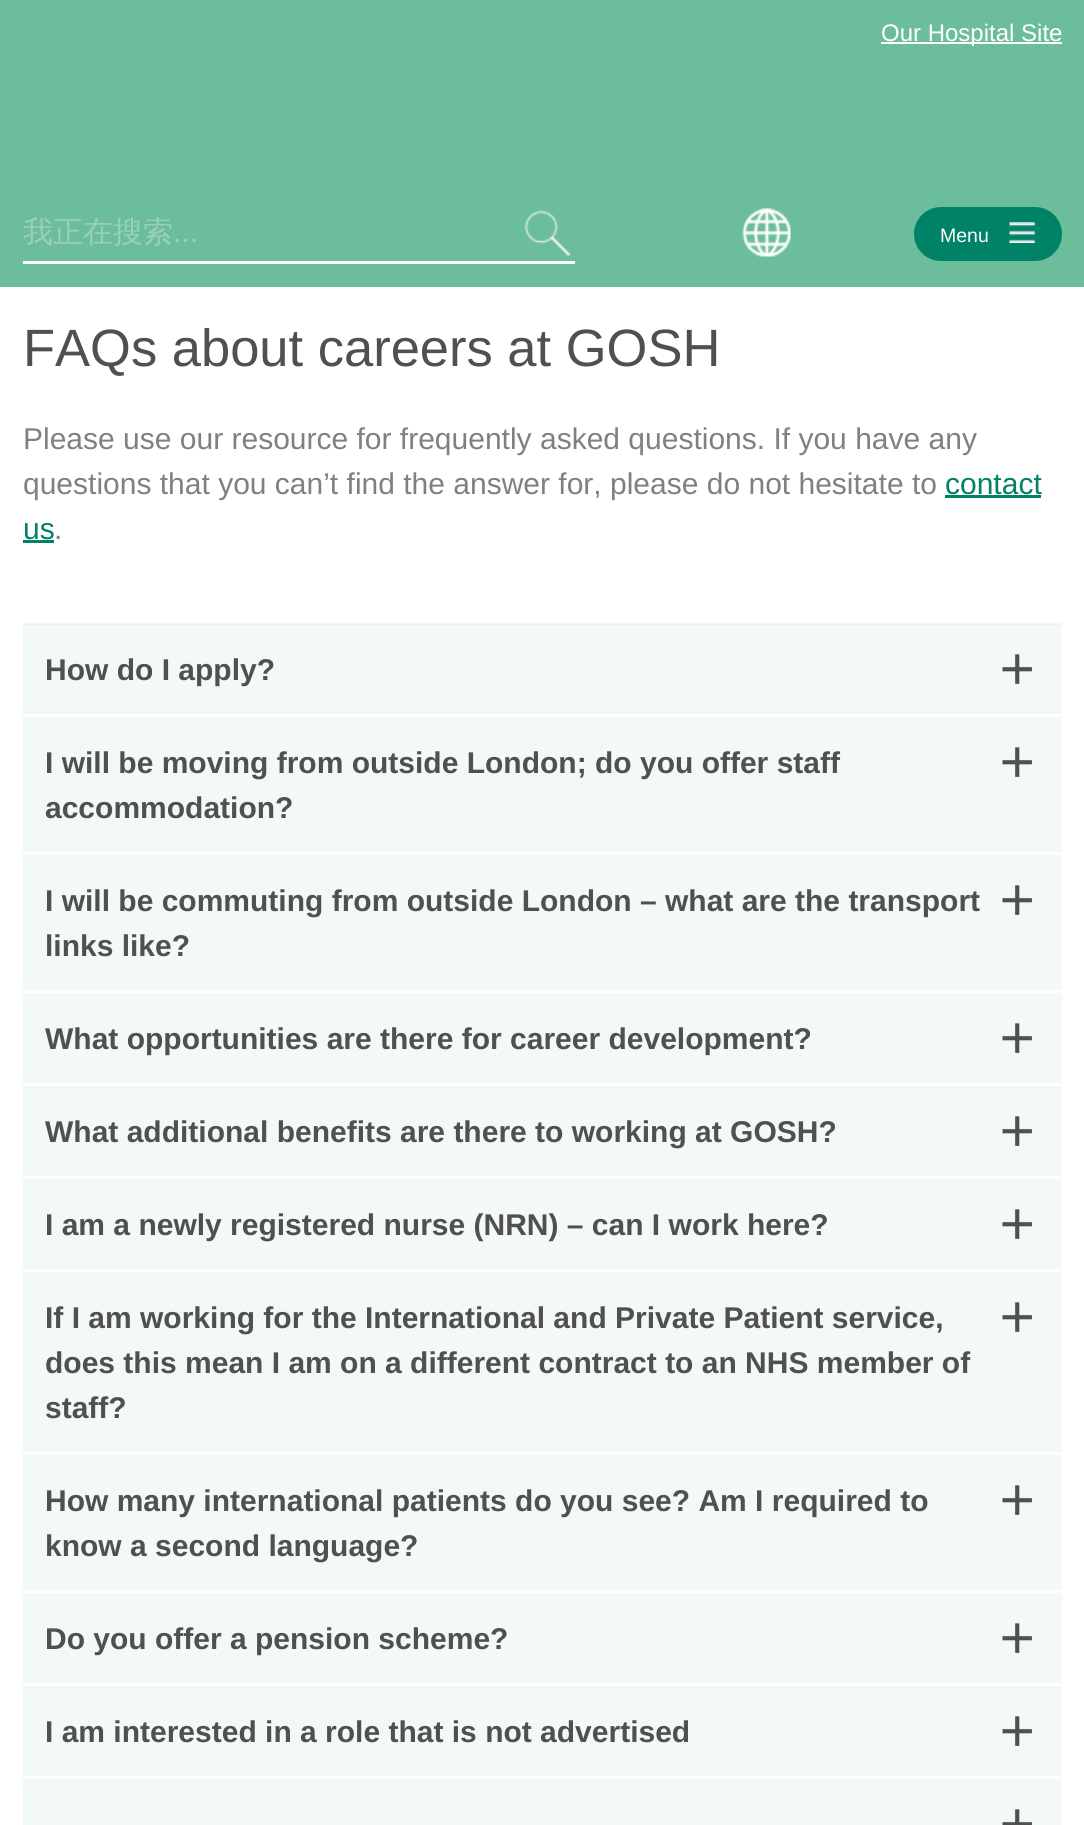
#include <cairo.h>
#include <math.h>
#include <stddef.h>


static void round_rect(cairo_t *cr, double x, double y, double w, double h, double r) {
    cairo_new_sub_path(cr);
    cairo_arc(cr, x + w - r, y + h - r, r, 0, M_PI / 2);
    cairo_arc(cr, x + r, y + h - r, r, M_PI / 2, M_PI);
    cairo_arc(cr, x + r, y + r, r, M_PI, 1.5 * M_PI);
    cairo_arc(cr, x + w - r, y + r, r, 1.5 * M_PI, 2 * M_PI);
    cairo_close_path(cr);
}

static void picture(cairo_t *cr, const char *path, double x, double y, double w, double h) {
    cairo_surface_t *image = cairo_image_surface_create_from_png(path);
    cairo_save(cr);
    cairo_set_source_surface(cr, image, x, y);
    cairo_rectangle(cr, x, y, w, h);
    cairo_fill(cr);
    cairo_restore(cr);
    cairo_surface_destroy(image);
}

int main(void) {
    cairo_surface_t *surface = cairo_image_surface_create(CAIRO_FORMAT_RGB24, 1084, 1825);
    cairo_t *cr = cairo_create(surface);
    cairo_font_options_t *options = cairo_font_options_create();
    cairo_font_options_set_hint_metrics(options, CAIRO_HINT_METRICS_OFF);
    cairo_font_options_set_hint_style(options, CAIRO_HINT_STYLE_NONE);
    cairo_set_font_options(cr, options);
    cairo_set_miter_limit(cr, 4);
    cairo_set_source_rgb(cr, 1, 1, 1);
    cairo_paint(cr);
    cairo_set_source_rgb(cr, 0.424, 0.741, 0.608);
    cairo_rectangle(cr, 0, 0, 1084, 287);
    cairo_fill(cr);
    cairo_set_source_rgb(cr, 1, 1, 1);
    cairo_rectangle(cr, 881, 42, 181, 2);
    cairo_fill(cr);
    cairo_select_font_face(cr, "Liberation Sans", CAIRO_FONT_SLANT_NORMAL, CAIRO_FONT_WEIGHT_NORMAL);
    cairo_set_font_size(cr, 24);
    cairo_move_to(cr, 881, 41);
    cairo_show_text(cr, "Our Hospital Site");
    cairo_rectangle(cr, 23, 261, 552, 3);
    cairo_fill(cr);
    cairo_select_font_face(cr, "WenQuanYi Zen Hei Medium", CAIRO_FONT_SLANT_NORMAL, CAIRO_FONT_WEIGHT_NORMAL);
    cairo_set_font_size(cr, 30);
    cairo_set_source_rgb(cr, 0.6, 0.816, 0.729);
    cairo_move_to(cr, 23, 242);
    cairo_show_text(cr, "我正在搜索");
    cairo_select_font_face(cr, "Liberation Sans", CAIRO_FONT_SLANT_NORMAL, CAIRO_FONT_WEIGHT_NORMAL);
    cairo_move_to(cr, 173, 242);
    cairo_show_text(cr, "...");
    picture(cr, "img1.png", 523, 210, 48, 46);
    picture(cr, "img2.png", 742, 208, 49, 49);
    cairo_set_source_rgb(cr, 0, 0.51, 0.404);
    round_rect(cr, 916.5, 209.5, 143, 49, 24.5);
    cairo_fill_preserve(cr);
    cairo_set_line_width(cr, 5);
    cairo_stroke(cr);
    cairo_set_font_size(cr, 19.5);
    cairo_set_source_rgb(cr, 1, 1, 1);
    cairo_move_to(cr, 940, 242);
    cairo_show_text(cr, "Menu");
    picture(cr, "img3.png", 1009, 222, 26, 21);
    cairo_set_source_rgb(cr, 0.949, 0.973, 0.965);
    cairo_rectangle(cr, 23, 625, 1039, 89);
    cairo_fill(cr);
    cairo_set_font_size(cr, 52.5);
    cairo_set_source_rgb(cr, 0.314, 0.314, 0.314);
    cairo_move_to(cr, 23, 366);
    cairo_show_text(cr, "FAQs about careers at GOSH");
    cairo_set_font_size(cr, 30);
    cairo_set_source_rgb(cr, 0.502, 0.502, 0.502);
    cairo_move_to(cr, 23, 449);
    cairo_show_text(cr, "Please use our resource for frequently asked questions. If you have any");
    cairo_move_to(cr, 23, 494);
    cairo_show_text(cr, "questions that you can’t find the answer for, please do not hesitate to");
    cairo_set_source_rgb(cr, 0, 0.51, 0.404);
    cairo_move_to(cr, 945, 494);
    cairo_show_text(cr, "contact");
    cairo_rectangle(cr, 945, 495, 96, 3);
    cairo_fill(cr);
    cairo_move_to(cr, 23, 539);
    cairo_show_text(cr, "us");
    cairo_set_source_rgb(cr, 0.502, 0.502, 0.502);
    cairo_move_to(cr, 54, 539);
    cairo_show_text(cr, ".");
    cairo_set_source_rgb(cr, 0, 0.51, 0.404);
    cairo_rectangle(cr, 23, 540, 31, 3);
    cairo_fill(cr);
    cairo_set_source_rgb(cr, 0.961, 0.961, 0.961);
    cairo_rectangle(cr, 23, 623, 1039, 1);
    cairo_fill(cr);
    cairo_set_source_rgb(cr, 0.922, 0.945, 0.937);
    cairo_rectangle(cr, 23, 624, 1039, 1);
    cairo_fill(cr);
    cairo_select_font_face(cr, "Liberation Sans", CAIRO_FONT_SLANT_NORMAL, CAIRO_FONT_WEIGHT_BOLD);
    cairo_set_source_rgb(cr, 0.314, 0.314, 0.314);
    cairo_move_to(cr, 45, 680);
    cairo_show_text(cr, "How do I apply?");
    picture(cr, "img4.png", 1002, 654, 30, 30);
    cairo_set_source_rgb(cr, 0.949, 0.973, 0.969);
    cairo_rectangle(cr, 23, 717, 1039, 135);
    cairo_fill(cr);
    cairo_set_source_rgb(cr, 0.314, 0.314, 0.314);
    cairo_move_to(cr, 45, 773);
    cairo_show_text(cr, "I will be moving from outside London; do you offer staff");
    picture(cr, "img5.png", 1002, 747, 30, 30);
    cairo_move_to(cr, 45, 818);
    cairo_show_text(cr, "accommodation?");
    cairo_set_source_rgb(cr, 0.949, 0.973, 0.969);
    cairo_rectangle(cr, 23, 855, 1039, 135);
    cairo_fill(cr);
    cairo_set_source_rgb(cr, 0.314, 0.314, 0.314);
    cairo_move_to(cr, 45, 911);
    cairo_show_text(cr, "I will be commuting from outside London – what are the transport");
    picture(cr, "img5.png", 1002, 885, 30, 30);
    cairo_move_to(cr, 45, 956);
    cairo_show_text(cr, "links like?");
    cairo_set_source_rgb(cr, 0.949, 0.973, 0.969);
    cairo_rectangle(cr, 23, 993, 1039, 90);
    cairo_fill(cr);
    cairo_set_source_rgb(cr, 0.314, 0.314, 0.314);
    cairo_move_to(cr, 45, 1049);
    cairo_show_text(cr, "What opportunities are there for career development?");
    picture(cr, "img5.png", 1002, 1023, 30, 30);
    cairo_set_source_rgb(cr, 0.949, 0.973, 0.969);
    cairo_rectangle(cr, 23, 1086, 1039, 90);
    cairo_fill(cr);
    cairo_set_source_rgb(cr, 0.314, 0.314, 0.314);
    cairo_move_to(cr, 45, 1142);
    cairo_show_text(cr, "What additional benefits are there to working at GOSH?");
    picture(cr, "img5.png", 1002, 1116, 30, 30);
    cairo_set_source_rgb(cr, 0.949, 0.973, 0.969);
    cairo_rectangle(cr, 23, 1179, 1039, 90);
    cairo_fill(cr);
    cairo_set_source_rgb(cr, 0.314, 0.314, 0.314);
    cairo_move_to(cr, 45, 1235);
    cairo_show_text(cr, "I am a newly registered nurse (NRN) – can I work here?");
    picture(cr, "img5.png", 1002, 1209, 30, 30);
    cairo_set_source_rgb(cr, 0.949, 0.973, 0.969);
    cairo_rectangle(cr, 23, 1272, 1039, 180);
    cairo_fill(cr);
    cairo_set_source_rgb(cr, 0.314, 0.314, 0.314);
    cairo_move_to(cr, 45, 1328);
    cairo_show_text(cr, "If I am working for the International and Private Patient service,");
    picture(cr, "img5.png", 1002, 1302, 30, 30);
    cairo_move_to(cr, 45, 1373);
    cairo_show_text(cr, "does this mean I am on a different contract to an NHS member of");
    cairo_move_to(cr, 45, 1418);
    cairo_show_text(cr, "staff?");
    cairo_set_source_rgb(cr, 0.949, 0.973, 0.969);
    cairo_rectangle(cr, 23, 1455, 1039, 135);
    cairo_fill(cr);
    cairo_set_source_rgb(cr, 0.314, 0.314, 0.314);
    cairo_move_to(cr, 45, 1511);
    cairo_show_text(cr, "How many international patients do you see? Am I required to");
    picture(cr, "img5.png", 1002, 1485, 30, 30);
    cairo_move_to(cr, 45, 1556);
    cairo_show_text(cr, "know a second language?");
    cairo_set_source_rgb(cr, 0.949, 0.973, 0.969);
    cairo_rectangle(cr, 23, 1593, 1039, 90);
    cairo_fill(cr);
    cairo_set_source_rgb(cr, 0.314, 0.314, 0.314);
    cairo_move_to(cr, 45, 1649);
    cairo_show_text(cr, "Do you offer a pension scheme?");
    picture(cr, "img5.png", 1002, 1623, 30, 30);
    cairo_set_source_rgb(cr, 0.949, 0.973, 0.969);
    cairo_rectangle(cr, 23, 1686, 1039, 90);
    cairo_fill(cr);
    cairo_set_source_rgb(cr, 0.314, 0.314, 0.314);
    cairo_move_to(cr, 45, 1742);
    cairo_show_text(cr, "I am interested in a role that is not advertised");
    picture(cr, "img5.png", 1002, 1716, 30, 30);
    cairo_set_source_rgb(cr, 0.949, 0.973, 0.965);
    cairo_rectangle(cr, 23, 1779, 1039, 46);
    cairo_fill(cr);
    picture(cr, "img6.png", 1002, 1809, 30, 16);
    cairo_surface_write_to_png(surface, "page.png");
    cairo_font_options_destroy(options);
    cairo_destroy(cr);
    cairo_surface_destroy(surface);
    return 0;
}
